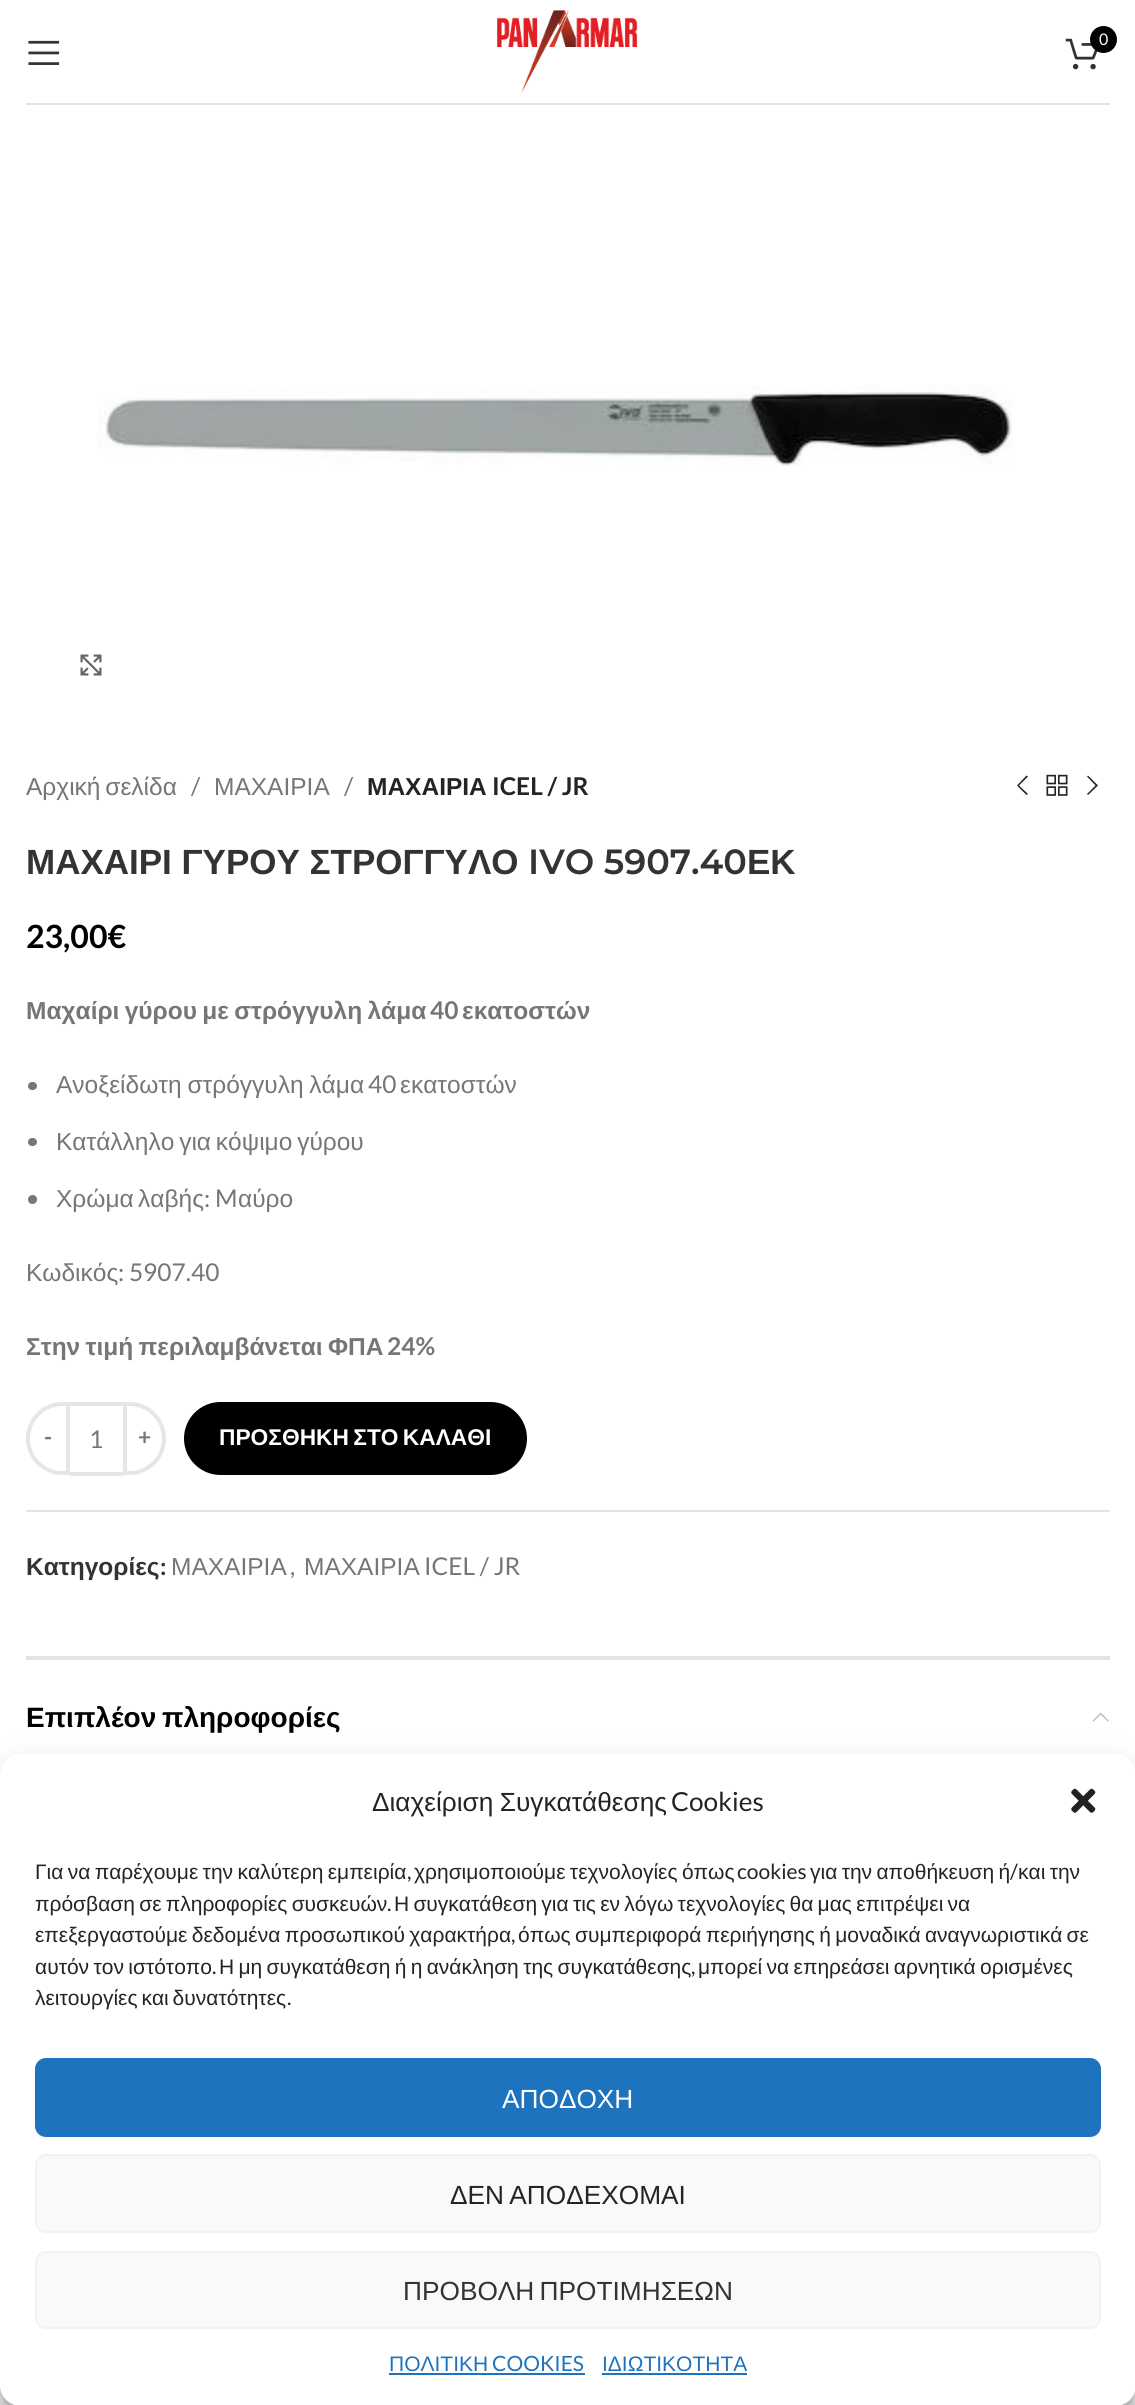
#include <cairo.h>
#include <math.h>
#include <stddef.h>


static void spaced_text(cairo_t *cr, double x, double y, const char *s, double letter, double word) {
    cairo_move_to(cr, x, y);
    while (*s) {
        char ch[5] = {0};
        int n = 0;
        do ch[n++] = *s++; while ((*s & 0xC0) == 0x80);
        cairo_show_text(cr, ch);
        cairo_rel_move_to(cr, letter + word * (*ch == ' '), 0);
    }
}

static void round_rect(cairo_t *cr, double x, double y, double w, double h, double r) {
    cairo_new_sub_path(cr);
    cairo_arc(cr, x + w - r, y + h - r, r, 0, M_PI / 2);
    cairo_arc(cr, x + r, y + h - r, r, M_PI / 2, M_PI);
    cairo_arc(cr, x + r, y + r, r, M_PI, 1.5 * M_PI);
    cairo_arc(cr, x + w - r, y + r, r, 1.5 * M_PI, 2 * M_PI);
    cairo_close_path(cr);
}

static void shadow(cairo_t *cr, double x, double y, double w, double h, double r, double blur, double alpha) {
    cairo_push_group_with_content(cr, CAIRO_CONTENT_ALPHA);
    cairo_set_operator(cr, CAIRO_OPERATOR_SOURCE);
    for (int i = 15; i >= -15 && fmin(w, h) + blur * i / 3 > 0; i -= 2) {
        double e = blur * i / 6;
        cairo_set_source_rgba(cr, 0, 0, 0, alpha * erfc((i - 1) / 8.5) / 2);
        round_rect(cr, x - e, y - e, w + 2 * e, h + 2 * e, fmax(0, fmin(r + e + blur * .6, fmin(w, h) / 2 + e)));
        cairo_fill(cr);
    }
    cairo_pattern_t *soft = cairo_pop_group(cr);
    cairo_mask(cr, soft);
    cairo_pattern_destroy(soft);
}

static void picture(cairo_t *cr, const char *path, double x, double y, double w, double h) {
    cairo_surface_t *image = cairo_image_surface_create_from_png(path);
    cairo_save(cr);
    cairo_set_source_surface(cr, image, x, y);
    cairo_rectangle(cr, x, y, w, h);
    cairo_fill(cr);
    cairo_restore(cr);
    cairo_surface_destroy(image);
}

int main(void) {
    cairo_surface_t *surface = cairo_image_surface_create(CAIRO_FORMAT_RGB24, 1135, 2405);
    cairo_t *cr = cairo_create(surface);
    cairo_font_options_t *options = cairo_font_options_create();
    cairo_font_options_set_hint_metrics(options, CAIRO_HINT_METRICS_OFF);
    cairo_font_options_set_hint_style(options, CAIRO_HINT_STYLE_NONE);
    cairo_set_font_options(cr, options);
    cairo_set_miter_limit(cr, 4);
    cairo_set_source_rgb(cr, 1, 1, 1);
    cairo_paint(cr);
    cairo_set_source_rgb(cr, 0.89, 0.89, 0.89);
    cairo_rectangle(cr, 26, 103, 1084, 2);
    cairo_fill(cr);
    picture(cr, "img1.png", 28, 40, 32, 25);
    picture(cr, "img2.png", 497, 9, 141, 85);
    picture(cr, "img3.png", 1065, 38, 33, 32);
    cairo_set_source_rgb(cr, 0, 0, 0);
    cairo_arc(cr, 1103.5, 39.5, 13.5, 0, 2 * M_PI);
    cairo_fill(cr);
    cairo_select_font_face(cr, "Lato", CAIRO_FONT_SLANT_NORMAL, CAIRO_FONT_WEIGHT_NORMAL);
    cairo_set_font_size(cr, 16);
    cairo_set_source_rgb(cr, 1, 1, 1);
    cairo_move_to(cr, 1099, 45);
    cairo_show_text(cr, "0");
    picture(cr, "img4.png", 97, 385, 917, 81);
    picture(cr, "img5.png", 80, 654, 22, 22);
    cairo_select_font_face(cr, "Liberation Sans", CAIRO_FONT_SLANT_NORMAL, CAIRO_FONT_WEIGHT_NORMAL);
    cairo_set_font_size(cr, 24.5);
    cairo_set_source_rgb(cr, 0.463, 0.463, 0.463);
    spaced_text(cr, 26, 795, "Αρχική σελίδα", 0, -2);
    cairo_select_font_face(cr, "Lato", CAIRO_FONT_SLANT_NORMAL, CAIRO_FONT_WEIGHT_NORMAL);
    cairo_move_to(cr, 191, 795);
    cairo_show_text(cr, "/");
    cairo_select_font_face(cr, "Liberation Sans", CAIRO_FONT_SLANT_NORMAL, CAIRO_FONT_WEIGHT_NORMAL);
    cairo_move_to(cr, 214, 795);
    cairo_show_text(cr, "ΜΑΧΑΙΡΙΑ");
    cairo_select_font_face(cr, "Lato", CAIRO_FONT_SLANT_NORMAL, CAIRO_FONT_WEIGHT_NORMAL);
    cairo_move_to(cr, 344, 795);
    cairo_show_text(cr, "/");
    cairo_select_font_face(cr, "Liberation Sans", CAIRO_FONT_SLANT_NORMAL, CAIRO_FONT_WEIGHT_BOLD);
    cairo_set_source_rgb(cr, 0.141, 0.141, 0.141);
    cairo_move_to(cr, 367, 795);
    cairo_show_text(cr, "ΜΑΧΑΙΡΙΑ");
    cairo_select_font_face(cr, "Lato", CAIRO_FONT_SLANT_NORMAL, CAIRO_FONT_WEIGHT_BOLD);
    cairo_move_to(cr, 492, 795);
    cairo_show_text(cr, "ICEL / JR");
    cairo_new_path(cr);
    cairo_move_to(cr, 1028, 776.5);
    cairo_line_to(cr, 1026.5, 775.5);
    cairo_line_to(cr, 1017, 785.5);
    cairo_line_to(cr, 1026.5, 795);
    cairo_line_to(cr, 1028, 794);
    cairo_line_to(cr, 1019, 785.5);
    cairo_close_path(cr);
    cairo_fill(cr);
    picture(cr, "img6.png", 1046, 774, 22, 22);
    cairo_new_path(cr);
    cairo_move_to(cr, 1087, 776.5);
    cairo_line_to(cr, 1095.5, 785.5);
    cairo_line_to(cr, 1087, 794);
    cairo_line_to(cr, 1088, 795);
    cairo_line_to(cr, 1098, 785.5);
    cairo_line_to(cr, 1088, 775.5);
    cairo_close_path(cr);
    cairo_fill(cr);
    cairo_select_font_face(cr, "Liberation Sans", CAIRO_FONT_SLANT_NORMAL, CAIRO_FONT_WEIGHT_BOLD);
    cairo_set_font_size(cr, 35);
    cairo_set_source_rgb(cr, 0.2, 0.2, 0.2);
    cairo_move_to(cr, 26, 874);
    cairo_show_text(cr, "ΜΑΧΑΙΡΙ ΓΥΡΟΥ ΣΤΡΟΓΓΥΛΟ");
    cairo_select_font_face(cr, "Montserrat SemiBold", CAIRO_FONT_SLANT_NORMAL, CAIRO_FONT_WEIGHT_NORMAL);
    cairo_move_to(cr, 528, 874);
    cairo_show_text(cr, "IVO 5907.40");
    cairo_select_font_face(cr, "Liberation Sans", CAIRO_FONT_SLANT_NORMAL, CAIRO_FONT_WEIGHT_BOLD);
    cairo_move_to(cr, 747, 874);
    cairo_show_text(cr, "ΕΚ");
    cairo_select_font_face(cr, "Lato", CAIRO_FONT_SLANT_NORMAL, CAIRO_FONT_WEIGHT_BOLD);
    cairo_set_font_size(cr, 32);
    cairo_set_source_rgb(cr, 0, 0, 0);
    cairo_move_to(cr, 26, 948);
    cairo_show_text(cr, "23,00€");
    cairo_select_font_face(cr, "Liberation Sans", CAIRO_FONT_SLANT_NORMAL, CAIRO_FONT_WEIGHT_BOLD);
    cairo_set_font_size(cr, 24.5);
    cairo_set_source_rgb(cr, 0.463, 0.463, 0.463);
    spaced_text(cr, 26, 1019, "Μαχαίρι γύρου με στρόγγυλη λάμα", 0, -1.5);
    cairo_select_font_face(cr, "Lato", CAIRO_FONT_SLANT_NORMAL, CAIRO_FONT_WEIGHT_BOLD);
    cairo_move_to(cr, 430, 1019);
    cairo_show_text(cr, "40");
    cairo_select_font_face(cr, "Liberation Sans", CAIRO_FONT_SLANT_NORMAL, CAIRO_FONT_WEIGHT_BOLD);
    cairo_move_to(cr, 462, 1019);
    cairo_show_text(cr, "εκατοστών");
    cairo_set_source_rgb(cr, 0.467, 0.467, 0.467);
    round_rect(cr, 28, 1082, 9, 8, 4);
    cairo_fill(cr);
    cairo_select_font_face(cr, "Liberation Sans", CAIRO_FONT_SLANT_NORMAL, CAIRO_FONT_WEIGHT_NORMAL);
    cairo_set_source_rgb(cr, 0.463, 0.463, 0.463);
    spaced_text(cr, 56, 1093, "Ανοξείδωτη στρόγγυλη λάμα", 0, -1);
    cairo_select_font_face(cr, "Lato", CAIRO_FONT_SLANT_NORMAL, CAIRO_FONT_WEIGHT_NORMAL);
    cairo_move_to(cr, 368, 1093);
    cairo_show_text(cr, "40");
    cairo_select_font_face(cr, "Liberation Sans", CAIRO_FONT_SLANT_NORMAL, CAIRO_FONT_WEIGHT_NORMAL);
    cairo_move_to(cr, 400, 1093);
    cairo_show_text(cr, "εκατοστών");
    cairo_set_source_rgb(cr, 0.467, 0.467, 0.467);
    round_rect(cr, 28, 1138, 9, 8, 4);
    cairo_fill(cr);
    cairo_set_source_rgb(cr, 0.463, 0.463, 0.463);
    spaced_text(cr, 56, 1150, "Κατάλληλο για κόψιμο γύρου", 0, -2);
    cairo_set_source_rgb(cr, 0.467, 0.467, 0.467);
    cairo_new_path(cr);
    cairo_arc(cr, 32.5, 1199.5, 4.5, 0, 2 * M_PI);
    cairo_fill(cr);
    cairo_set_source_rgb(cr, 0.463, 0.463, 0.463);
    cairo_move_to(cr, 56, 1207);
    cairo_show_text(cr, "Χρώμα");
    cairo_move_to(cr, 138, 1207);
    cairo_show_text(cr, "λαβής");
    cairo_select_font_face(cr, "Lato", CAIRO_FONT_SLANT_NORMAL, CAIRO_FONT_WEIGHT_NORMAL);
    cairo_move_to(cr, 204, 1207);
    cairo_show_text(cr, ": M");
    cairo_select_font_face(cr, "Liberation Sans", CAIRO_FONT_SLANT_NORMAL, CAIRO_FONT_WEIGHT_NORMAL);
    cairo_move_to(cr, 238, 1207);
    cairo_show_text(cr, "αύρο");
    cairo_move_to(cr, 26, 1281);
    cairo_show_text(cr, "Κωδικός");
    cairo_select_font_face(cr, "Lato", CAIRO_FONT_SLANT_NORMAL, CAIRO_FONT_WEIGHT_NORMAL);
    cairo_move_to(cr, 118, 1281);
    cairo_show_text(cr, ": 5907.40");
    cairo_select_font_face(cr, "Liberation Sans", CAIRO_FONT_SLANT_NORMAL, CAIRO_FONT_WEIGHT_BOLD);
    spaced_text(cr, 26, 1355, "Στην τιμή περιλαμβάνεται ΦΠΑ", 0, -1.5);
    cairo_select_font_face(cr, "Lato", CAIRO_FONT_SLANT_NORMAL, CAIRO_FONT_WEIGHT_BOLD);
    cairo_move_to(cr, 387, 1355);
    cairo_show_text(cr, "24%");
    cairo_new_path(cr);
    cairo_move_to(cr, 62.5, 1404);
    cairo_line_to(cr, 68, 1404);
    cairo_line_to(cr, 68, 1473);
    cairo_line_to(cr, 62.5, 1473);
    cairo_curve_to(cr, 43.5, 1473, 28, 1457.5, 28, 1438.5);
    cairo_curve_to(cr, 28, 1419.5, 43.5, 1404, 62.5, 1404);
    cairo_close_path(cr);
    cairo_set_source_rgb(cr, 0.902, 0.902, 0.902);
    cairo_set_line_width(cr, 4);
    cairo_stroke(cr);
    cairo_set_font_size(cr, 22.75);
    cairo_set_source_rgb(cr, 0.463, 0.463, 0.463);
    cairo_move_to(cr, 44, 1445);
    cairo_show_text(cr, "-");
    cairo_set_source_rgb(cr, 0.902, 0.902, 0.902);
    cairo_rectangle(cr, 70, 1402, 53, 4);
    cairo_fill(cr);
    cairo_rectangle(cr, 70, 1472, 53, 4);
    cairo_fill(cr);
    cairo_select_font_face(cr, "Lato", CAIRO_FONT_SLANT_NORMAL, CAIRO_FONT_WEIGHT_NORMAL);
    cairo_set_font_size(cr, 24.5);
    cairo_set_source_rgb(cr, 0.463, 0.463, 0.463);
    cairo_move_to(cr, 89, 1448);
    cairo_show_text(cr, "1");
    cairo_new_path(cr);
    cairo_move_to(cr, 125, 1404);
    cairo_line_to(cr, 129.5, 1404);
    cairo_curve_to(cr, 148.5, 1404, 164, 1419.5, 164, 1438.5);
    cairo_curve_to(cr, 164, 1457.5, 148.5, 1473, 129.5, 1473);
    cairo_line_to(cr, 125, 1473);
    cairo_close_path(cr);
    cairo_set_source_rgb(cr, 0.902, 0.902, 0.902);
    cairo_stroke(cr);
    cairo_select_font_face(cr, "Lato", CAIRO_FONT_SLANT_NORMAL, CAIRO_FONT_WEIGHT_BOLD);
    cairo_set_font_size(cr, 22.75);
    cairo_set_source_rgb(cr, 0.463, 0.463, 0.463);
    cairo_move_to(cr, 138, 1445);
    cairo_show_text(cr, "+");
    cairo_set_source_rgb(cr, 0, 0, 0);
    round_rect(cr, 184, 1402, 343, 73, 36.5);
    cairo_fill(cr);
    cairo_select_font_face(cr, "Liberation Sans", CAIRO_FONT_SLANT_NORMAL, CAIRO_FONT_WEIGHT_BOLD);
    cairo_set_source_rgb(cr, 1, 1, 1);
    spaced_text(cr, 219, 1445, "ΠΡΟΣΘΗΚΗ ΣΤΟ ΚΑΛΑΘΙ", 0, -2);
    cairo_set_source_rgb(cr, 0.894, 0.894, 0.894);
    cairo_rectangle(cr, 26, 1510, 1084, 2);
    cairo_fill(cr);
    cairo_set_font_size(cr, 24.5);
    cairo_set_source_rgb(cr, 0.2, 0.2, 0.2);
    cairo_move_to(cr, 26, 1575);
    cairo_show_text(cr, "Κατηγορίες");
    cairo_select_font_face(cr, "Lato", CAIRO_FONT_SLANT_NORMAL, CAIRO_FONT_WEIGHT_BOLD);
    cairo_move_to(cr, 160, 1575);
    cairo_show_text(cr, ":");
    cairo_select_font_face(cr, "Liberation Sans", CAIRO_FONT_SLANT_NORMAL, CAIRO_FONT_WEIGHT_NORMAL);
    cairo_set_source_rgb(cr, 0.463, 0.463, 0.463);
    cairo_move_to(cr, 171, 1575);
    cairo_show_text(cr, "ΜΑΧΑΙΡΙΑ");
    cairo_select_font_face(cr, "Lato", CAIRO_FONT_SLANT_NORMAL, CAIRO_FONT_WEIGHT_NORMAL);
    cairo_move_to(cr, 290, 1575);
    cairo_show_text(cr, ",");
    cairo_select_font_face(cr, "Liberation Sans", CAIRO_FONT_SLANT_NORMAL, CAIRO_FONT_WEIGHT_NORMAL);
    cairo_move_to(cr, 304, 1575);
    cairo_show_text(cr, "ΜΑΧΑΙΡΙΑ");
    cairo_select_font_face(cr, "Lato", CAIRO_FONT_SLANT_NORMAL, CAIRO_FONT_WEIGHT_NORMAL);
    cairo_move_to(cr, 424, 1575);
    cairo_show_text(cr, "ICEL / JR");
    cairo_set_source_rgb(cr, 0.894, 0.894, 0.894);
    cairo_rectangle(cr, 26, 1656, 1084, 4);
    cairo_fill(cr);
    cairo_select_font_face(cr, "Liberation Sans", CAIRO_FONT_SLANT_NORMAL, CAIRO_FONT_WEIGHT_BOLD);
    cairo_set_font_size(cr, 28);
    cairo_set_source_rgb(cr, 0, 0, 0);
    spaced_text(cr, 26, 1727, "Επιπλέον πληροφορίες", 0, -2);
    picture(cr, "img7.png", 1092, 1712, 17, 10);
    cairo_set_source_rgb(cr, 0, 0, 0);
    shadow(cr, 0, 1764, 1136, 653, 21, 5, 0.23);
    shadow(cr, 0, 1771, 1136, 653, 21, 17.5, 0.19);
    cairo_set_source_rgb(cr, 1, 1, 1);
    round_rect(cr, 0, 1754, 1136, 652, 21);
    cairo_fill(cr);
    cairo_select_font_face(cr, "Liberation Sans", CAIRO_FONT_SLANT_NORMAL, CAIRO_FONT_WEIGHT_NORMAL);
    cairo_set_font_size(cr, 26.25);
    cairo_set_source_rgb(cr, 0.141, 0.141, 0.141);
    spaced_text(cr, 372, 1811, "Διαχείριση Συγκατάθεσης", 0, -1);
    cairo_select_font_face(cr, "Lato", CAIRO_FONT_SLANT_NORMAL, CAIRO_FONT_WEIGHT_NORMAL);
    cairo_move_to(cr, 671, 1811);
    cairo_show_text(cr, "Cookies");
    picture(cr, "img8.png", 1071, 1788, 25, 25);
    cairo_select_font_face(cr, "Liberation Sans", CAIRO_FONT_SLANT_NORMAL, CAIRO_FONT_WEIGHT_NORMAL);
    cairo_set_font_size(cr, 21);
    spaced_text(cr, 35, 1879, "Για να παρέχουμε την καλύτερη εμπειρία", 0, -1.5);
    cairo_select_font_face(cr, "Lato", CAIRO_FONT_SLANT_NORMAL, CAIRO_FONT_WEIGHT_NORMAL);
    cairo_move_to(cr, 407, 1879);
    cairo_show_text(cr, ",");
    cairo_select_font_face(cr, "Liberation Sans", CAIRO_FONT_SLANT_NORMAL, CAIRO_FONT_WEIGHT_NORMAL);
    spaced_text(cr, 414, 1879, "χρησιμοποιούμε τεχνολογίες όπως", 0, -1.5);
    cairo_select_font_face(cr, "Lato", CAIRO_FONT_SLANT_NORMAL, CAIRO_FONT_WEIGHT_NORMAL);
    cairo_move_to(cr, 737, 1879);
    cairo_show_text(cr, "cookies");
    cairo_select_font_face(cr, "Liberation Sans", CAIRO_FONT_SLANT_NORMAL, CAIRO_FONT_WEIGHT_NORMAL);
    spaced_text(cr, 810, 1879, "για την αποθήκευση ή", 0, -1.5);
    cairo_select_font_face(cr, "Lato", CAIRO_FONT_SLANT_NORMAL, CAIRO_FONT_WEIGHT_NORMAL);
    cairo_move_to(cr, 1010, 1879);
    cairo_show_text(cr, "/");
    cairo_select_font_face(cr, "Liberation Sans", CAIRO_FONT_SLANT_NORMAL, CAIRO_FONT_WEIGHT_NORMAL);
    spaced_text(cr, 1018, 1879, "και την", 0, -1.5);
    spaced_text(cr, 35, 1911, "πρόσβαση σε πληροφορίες συσκευών", 0, -1.6);
    cairo_select_font_face(cr, "Lato", CAIRO_FONT_SLANT_NORMAL, CAIRO_FONT_WEIGHT_NORMAL);
    cairo_move_to(cr, 387, 1911);
    cairo_show_text(cr, ".");
    cairo_select_font_face(cr, "Liberation Sans", CAIRO_FONT_SLANT_NORMAL, CAIRO_FONT_WEIGHT_NORMAL);
    spaced_text(cr, 394, 1911, "Η συγκατάθεση για τις εν λόγω τεχνολογίες θα μας επιτρέψει να", 0, -1.6);
    spaced_text(cr, 35, 1942, "επεξεργαστούμε δεδομένα προσωπικού χαρακτήρα", 0, -1.5);
    cairo_select_font_face(cr, "Lato", CAIRO_FONT_SLANT_NORMAL, CAIRO_FONT_WEIGHT_NORMAL);
    cairo_move_to(cr, 511, 1942);
    cairo_show_text(cr, ",");
    cairo_select_font_face(cr, "Liberation Sans", CAIRO_FONT_SLANT_NORMAL, CAIRO_FONT_WEIGHT_NORMAL);
    spaced_text(cr, 518, 1942, "όπως συμπεριφορά περιήγησης ή μοναδικά αναγνωριστικά σε", 0, -1.5);
    spaced_text(cr, 35, 1974, "αυτόν τον ιστότοπο", 0, -1.5);
    cairo_select_font_face(cr, "Lato", CAIRO_FONT_SLANT_NORMAL, CAIRO_FONT_WEIGHT_NORMAL);
    cairo_move_to(cr, 212, 1974);
    cairo_show_text(cr, ".");
    cairo_select_font_face(cr, "Liberation Sans", CAIRO_FONT_SLANT_NORMAL, CAIRO_FONT_WEIGHT_NORMAL);
    spaced_text(cr, 219, 1974, "Η μη συγκατάθεση ή η ανάκληση της συγκατάθεσης", 0, -1.5);
    cairo_select_font_face(cr, "Lato", CAIRO_FONT_SLANT_NORMAL, CAIRO_FONT_WEIGHT_NORMAL);
    cairo_move_to(cr, 691, 1974);
    cairo_show_text(cr, ",");
    cairo_select_font_face(cr, "Liberation Sans", CAIRO_FONT_SLANT_NORMAL, CAIRO_FONT_WEIGHT_NORMAL);
    spaced_text(cr, 698, 1974, "μπορεί να επηρεάσει αρνητικά ορισμένες", 0, -1.5);
    spaced_text(cr, 35, 2005, "λειτουργίες και δυνατότητες", 0, -2);
    cairo_select_font_face(cr, "Lato", CAIRO_FONT_SLANT_NORMAL, CAIRO_FONT_WEIGHT_NORMAL);
    cairo_move_to(cr, 287, 2005);
    cairo_show_text(cr, ".");
    cairo_set_source_rgb(cr, 0.118, 0.451, 0.745);
    round_rect(cr, 36, 2059, 1064, 77, 10);
    cairo_fill_preserve(cr);
    cairo_set_line_width(cr, 2);
    cairo_stroke(cr);
    cairo_select_font_face(cr, "Liberation Sans", CAIRO_FONT_SLANT_NORMAL, CAIRO_FONT_WEIGHT_NORMAL);
    cairo_set_font_size(cr, 26.25);
    cairo_set_source_rgb(cr, 1, 1, 1);
    cairo_move_to(cr, 502, 2108);
    cairo_show_text(cr, "ΑΠΟΔΟΧΗ");
    cairo_set_source_rgb(cr, 0.976, 0.976, 0.976);
    round_rect(cr, 36, 2155, 1064, 77, 10);
    cairo_fill_preserve(cr);
    cairo_set_source_rgb(cr, 0.949, 0.949, 0.949);
    cairo_stroke(cr);
    cairo_set_source_rgb(cr, 0.141, 0.141, 0.141);
    spaced_text(cr, 450, 2204, "ΔΕΝ ΑΠΟΔΕΧΟΜΑΙ", 0, -2);
    cairo_set_source_rgb(cr, 0.976, 0.976, 0.976);
    round_rect(cr, 36, 2252, 1064, 76, 10);
    cairo_fill_preserve(cr);
    cairo_set_source_rgb(cr, 0.949, 0.949, 0.949);
    cairo_stroke(cr);
    cairo_set_source_rgb(cr, 0.2, 0.2, 0.2);
    spaced_text(cr, 403, 2300, "ΠΡΟΒΟΛΗ ΠΡΟΤΙΜΗΣΕΩΝ", 0, -2);
    cairo_set_font_size(cr, 21);
    cairo_set_source_rgb(cr, 0.118, 0.451, 0.745);
    cairo_move_to(cr, 389, 2371);
    cairo_show_text(cr, "ΠΟΛΙΤΙΚΗ");
    cairo_rectangle(cr, 389, 2373, 196, 2);
    cairo_fill(cr);
    cairo_select_font_face(cr, "Lato", CAIRO_FONT_SLANT_NORMAL, CAIRO_FONT_WEIGHT_NORMAL);
    cairo_move_to(cr, 492, 2371);
    cairo_show_text(cr, "COOKIES");
    cairo_select_font_face(cr, "Liberation Sans", CAIRO_FONT_SLANT_NORMAL, CAIRO_FONT_WEIGHT_NORMAL);
    cairo_move_to(cr, 602, 2371);
    cairo_show_text(cr, "ΙΔΙΩΤΙΚΟΤΗΤΑ");
    cairo_rectangle(cr, 602, 2373, 145, 2);
    cairo_fill(cr);
    cairo_surface_write_to_png(surface, "page.png");
    cairo_font_options_destroy(options);
    cairo_destroy(cr);
    cairo_surface_destroy(surface);
    return 0;
}
